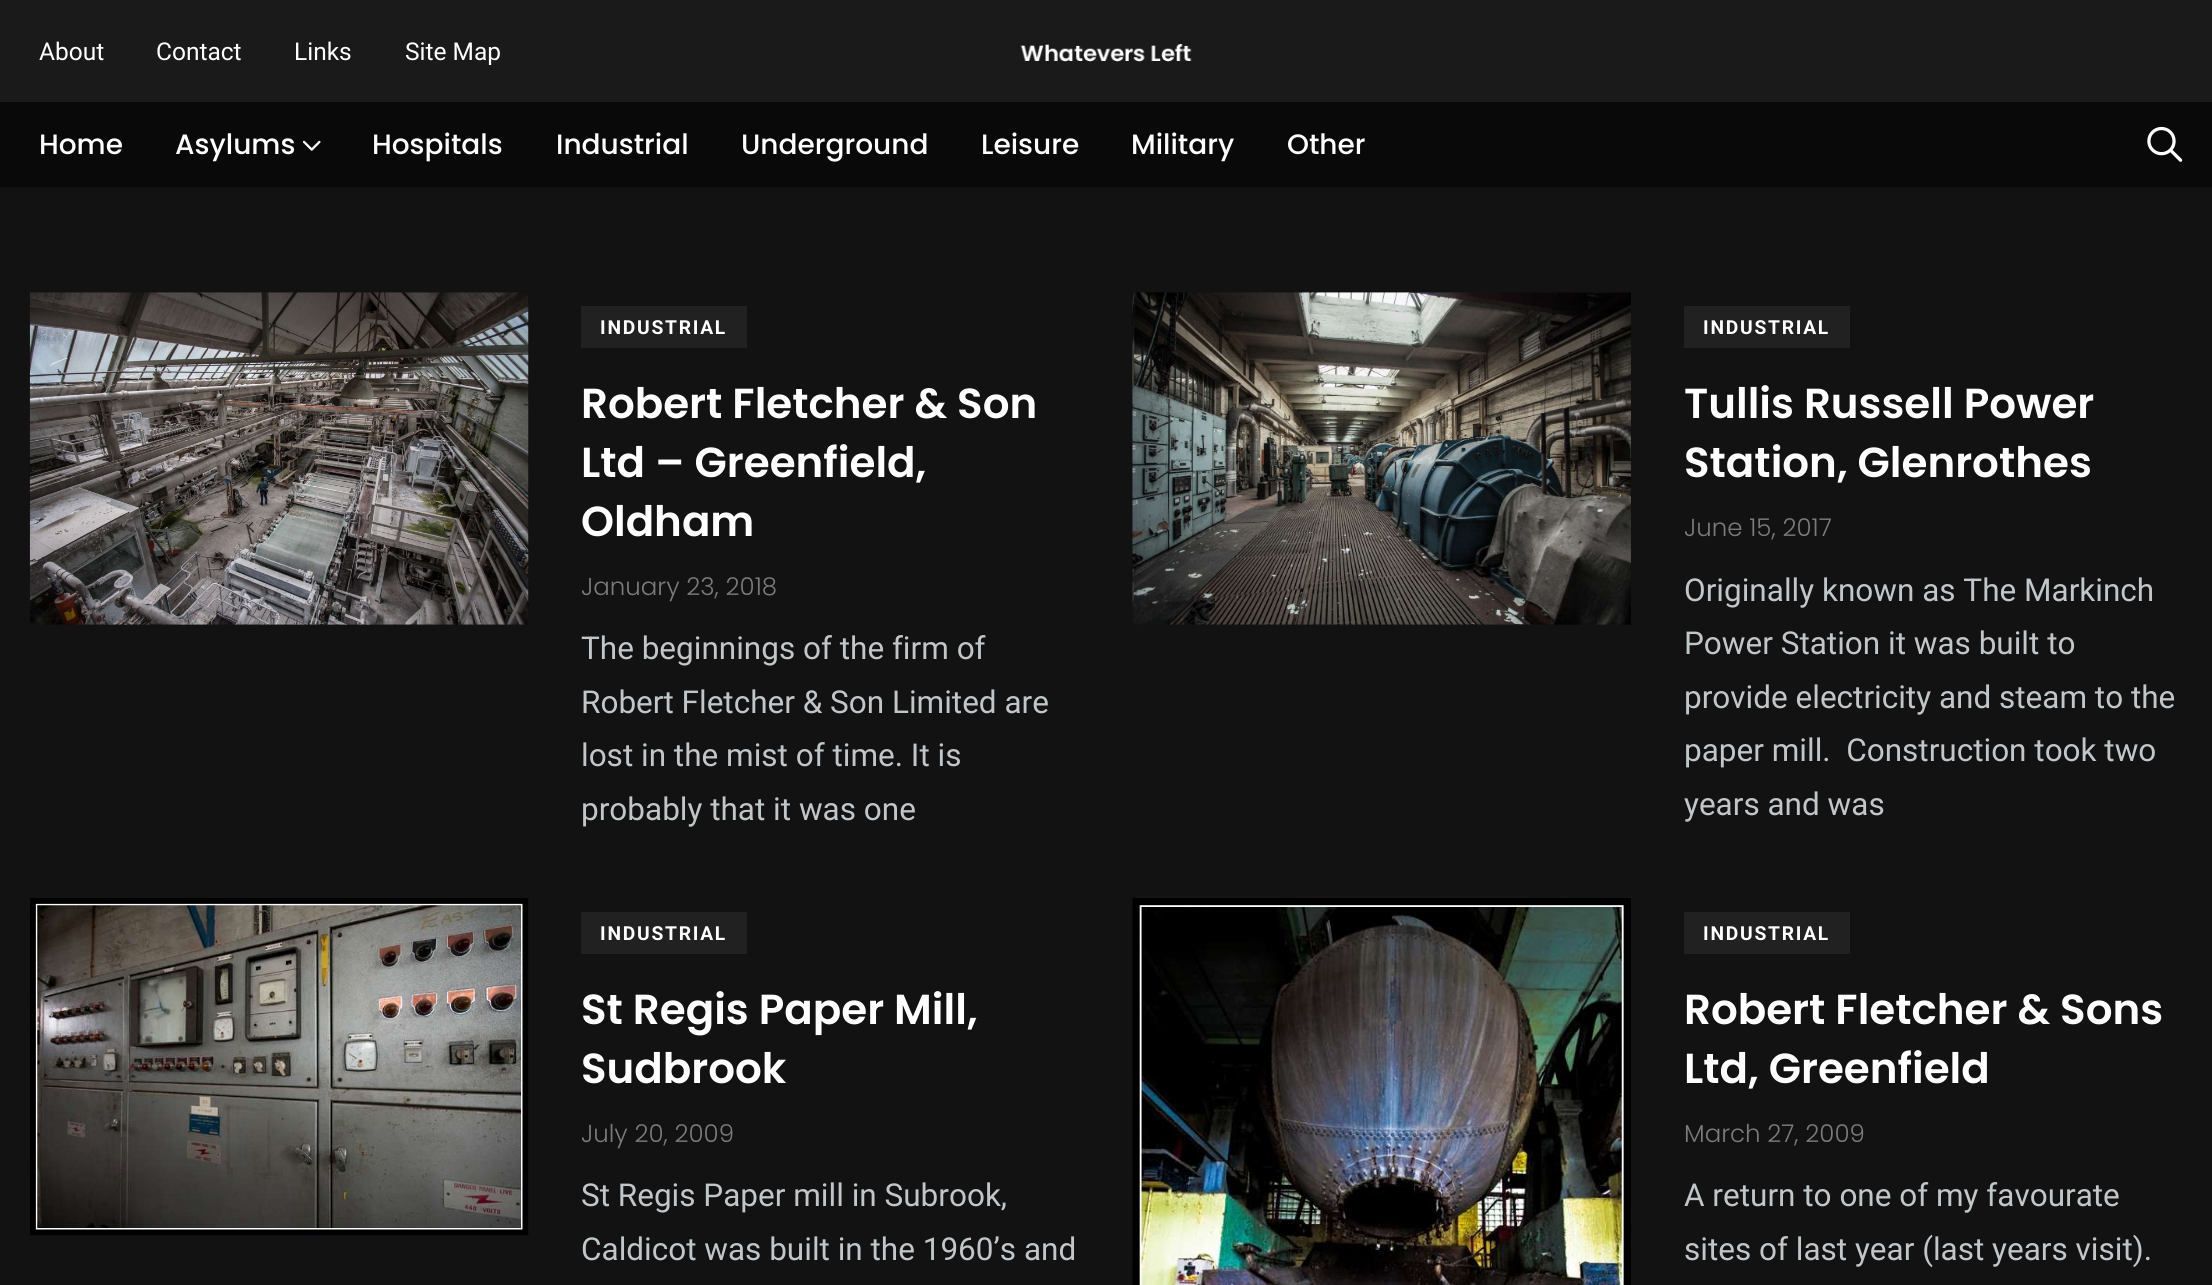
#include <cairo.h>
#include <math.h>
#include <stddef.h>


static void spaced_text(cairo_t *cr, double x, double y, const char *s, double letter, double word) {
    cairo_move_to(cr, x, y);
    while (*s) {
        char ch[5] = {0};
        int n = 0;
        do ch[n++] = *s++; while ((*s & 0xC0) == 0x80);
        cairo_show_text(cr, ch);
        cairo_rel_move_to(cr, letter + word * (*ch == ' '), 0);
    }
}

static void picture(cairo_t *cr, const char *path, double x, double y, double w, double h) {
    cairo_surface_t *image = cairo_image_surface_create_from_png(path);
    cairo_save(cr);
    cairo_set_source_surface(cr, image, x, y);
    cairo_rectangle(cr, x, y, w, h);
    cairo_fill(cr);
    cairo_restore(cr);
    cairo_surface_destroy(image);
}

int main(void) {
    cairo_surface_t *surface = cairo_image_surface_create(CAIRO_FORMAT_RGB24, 2212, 1285);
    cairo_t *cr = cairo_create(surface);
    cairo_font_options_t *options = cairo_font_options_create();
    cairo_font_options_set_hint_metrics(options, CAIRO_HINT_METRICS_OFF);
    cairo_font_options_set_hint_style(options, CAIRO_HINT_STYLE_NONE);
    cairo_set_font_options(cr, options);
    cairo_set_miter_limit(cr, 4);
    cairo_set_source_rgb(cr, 0.071, 0.071, 0.075);
    cairo_paint(cr);
    cairo_set_source_rgb(cr, 0.102, 0.102, 0.102);
    cairo_rectangle(cr, 0, 0, 2212, 102);
    cairo_fill(cr);
    cairo_select_font_face(cr, "Roboto", CAIRO_FONT_SLANT_NORMAL, CAIRO_FONT_WEIGHT_NORMAL);
    cairo_set_font_size(cr, 24.5);
    cairo_set_source_rgb(cr, 1, 1, 1);
    cairo_move_to(cr, 39, 60);
    cairo_show_text(cr, "About");
    cairo_move_to(cr, 156, 60);
    cairo_show_text(cr, "Contact");
    cairo_move_to(cr, 294, 60);
    cairo_show_text(cr, "Links");
    cairo_move_to(cr, 405, 60);
    cairo_show_text(cr, "Site Map");
    picture(cr, "img1.png", 1020, 44, 172, 18);
    cairo_set_source_rgb(cr, 0.039, 0.039, 0.039);
    cairo_rectangle(cr, 0, 102, 2212, 85);
    cairo_fill(cr);
    cairo_select_font_face(cr, "Poppins Medium", CAIRO_FONT_SLANT_NORMAL, CAIRO_FONT_WEIGHT_NORMAL);
    cairo_set_font_size(cr, 28);
    cairo_set_source_rgb(cr, 1, 1, 1);
    cairo_move_to(cr, 39, 154);
    cairo_show_text(cr, "Home");
    cairo_move_to(cr, 175, 154);
    cairo_show_text(cr, "Asylums");
    picture(cr, "img2.png", 302, 140, 19, 11);
    cairo_move_to(cr, 372, 154);
    cairo_show_text(cr, "Hospitals");
    cairo_move_to(cr, 556, 154);
    cairo_show_text(cr, "Industrial");
    cairo_move_to(cr, 741, 154);
    cairo_show_text(cr, "Underground");
    cairo_move_to(cr, 981, 154);
    cairo_show_text(cr, "Leisure");
    cairo_move_to(cr, 1131, 154);
    cairo_show_text(cr, "Military");
    cairo_move_to(cr, 1287, 154);
    cairo_show_text(cr, "Other");
    picture(cr, "img3.png", 2147, 126, 36, 36);
    picture(cr, "img4.png", 29, 292, 500, 333);
    cairo_set_source_rgb(cr, 0.129, 0.129, 0.129);
    cairo_rectangle(cr, 581, 306, 166, 42);
    cairo_fill(cr);
    cairo_select_font_face(cr, "Roboto", CAIRO_FONT_SLANT_NORMAL, CAIRO_FONT_WEIGHT_BOLD);
    cairo_set_font_size(cr, 19.25);
    cairo_set_source_rgb(cr, 1, 1, 1);
    spaced_text(cr, 600, 334, "INDUSTRIAL", 1.75, 0);
    cairo_select_font_face(cr, "Poppins SemiBold", CAIRO_FONT_SLANT_NORMAL, CAIRO_FONT_WEIGHT_NORMAL);
    cairo_set_font_size(cr, 42);
    cairo_move_to(cr, 581, 418);
    cairo_show_text(cr, "Robert Fletcher & Son");
    cairo_move_to(cr, 581, 477);
    cairo_show_text(cr, "Ltd – Greenfield,");
    cairo_move_to(cr, 581, 536);
    cairo_show_text(cr, "Oldham");
    cairo_select_font_face(cr, "Poppins Light", CAIRO_FONT_SLANT_NORMAL, CAIRO_FONT_WEIGHT_NORMAL);
    cairo_set_font_size(cr, 24.5);
    cairo_set_source_rgb(cr, 0.482, 0.482, 0.482);
    cairo_move_to(cr, 581, 595);
    cairo_show_text(cr, "January 23, 2018");
    cairo_select_font_face(cr, "Roboto", CAIRO_FONT_SLANT_NORMAL, CAIRO_FONT_WEIGHT_NORMAL);
    cairo_set_font_size(cr, 31.5);
    cairo_set_source_rgb(cr, 0.757, 0.776, 0.788);
    cairo_move_to(cr, 581, 659);
    cairo_show_text(cr, "The beginnings of the firm of");
    cairo_move_to(cr, 581, 713);
    cairo_show_text(cr, "Robert Fletcher & Son Limited are");
    cairo_move_to(cr, 581, 766);
    cairo_show_text(cr, "lost in the mist of time. It is");
    cairo_move_to(cr, 581, 820);
    cairo_show_text(cr, "probably that it was one");
    picture(cr, "img5.png", 1132, 292, 499, 333);
    cairo_set_source_rgb(cr, 0.129, 0.129, 0.129);
    cairo_rectangle(cr, 1684, 306, 166, 42);
    cairo_fill(cr);
    cairo_select_font_face(cr, "Roboto", CAIRO_FONT_SLANT_NORMAL, CAIRO_FONT_WEIGHT_BOLD);
    cairo_set_font_size(cr, 19.25);
    cairo_set_source_rgb(cr, 1, 1, 1);
    spaced_text(cr, 1703, 334, "INDUSTRIAL", 1.75, 0);
    cairo_select_font_face(cr, "Poppins SemiBold", CAIRO_FONT_SLANT_NORMAL, CAIRO_FONT_WEIGHT_NORMAL);
    cairo_set_font_size(cr, 42);
    cairo_move_to(cr, 1684, 418);
    cairo_show_text(cr, "Tullis Russell Power");
    cairo_move_to(cr, 1684, 477);
    cairo_show_text(cr, "Station, Glenrothes");
    cairo_select_font_face(cr, "Poppins Light", CAIRO_FONT_SLANT_NORMAL, CAIRO_FONT_WEIGHT_NORMAL);
    cairo_set_font_size(cr, 24.5);
    cairo_set_source_rgb(cr, 0.482, 0.482, 0.482);
    cairo_move_to(cr, 1684, 536);
    cairo_show_text(cr, "June 15, 2017");
    cairo_select_font_face(cr, "Roboto", CAIRO_FONT_SLANT_NORMAL, CAIRO_FONT_WEIGHT_NORMAL);
    cairo_set_font_size(cr, 31.5);
    cairo_set_source_rgb(cr, 0.757, 0.776, 0.788);
    cairo_move_to(cr, 1684, 601);
    cairo_show_text(cr, "Originally known as The Markinch");
    cairo_move_to(cr, 1684, 654);
    cairo_show_text(cr, "Power Station it was built to");
    cairo_move_to(cr, 1684, 708);
    cairo_show_text(cr, "provide electricity and steam to the");
    cairo_move_to(cr, 1684, 761);
    cairo_show_text(cr, "paper mill.  Construction took two");
    cairo_move_to(cr, 1684, 815);
    cairo_show_text(cr, "years and was");
    picture(cr, "img6.png", 30, 898, 499, 338);
    cairo_set_source_rgb(cr, 0.129, 0.129, 0.129);
    cairo_rectangle(cr, 581, 912, 166, 42);
    cairo_fill(cr);
    cairo_select_font_face(cr, "Roboto", CAIRO_FONT_SLANT_NORMAL, CAIRO_FONT_WEIGHT_BOLD);
    cairo_set_font_size(cr, 19.25);
    cairo_set_source_rgb(cr, 1, 1, 1);
    spaced_text(cr, 600, 940, "INDUSTRIAL", 1.75, 0);
    cairo_select_font_face(cr, "Poppins SemiBold", CAIRO_FONT_SLANT_NORMAL, CAIRO_FONT_WEIGHT_NORMAL);
    cairo_set_font_size(cr, 42);
    cairo_move_to(cr, 581, 1024);
    cairo_show_text(cr, "St Regis Paper Mill,");
    cairo_move_to(cr, 581, 1083);
    cairo_show_text(cr, "Sudbrook");
    cairo_select_font_face(cr, "Poppins Light", CAIRO_FONT_SLANT_NORMAL, CAIRO_FONT_WEIGHT_NORMAL);
    cairo_set_font_size(cr, 24.5);
    cairo_set_source_rgb(cr, 0.482, 0.482, 0.482);
    cairo_move_to(cr, 581, 1142);
    cairo_show_text(cr, "July 20, 2009");
    cairo_select_font_face(cr, "Roboto", CAIRO_FONT_SLANT_NORMAL, CAIRO_FONT_WEIGHT_NORMAL);
    cairo_set_font_size(cr, 31.5);
    cairo_set_source_rgb(cr, 0.757, 0.776, 0.788);
    cairo_move_to(cr, 581, 1206);
    cairo_show_text(cr, "St Regis Paper mill in Subrook,");
    cairo_move_to(cr, 581, 1260);
    cairo_show_text(cr, "Caldicot was built in the 1960’s and");
    picture(cr, "img7.png", 1132, 898, 499, 387);
    cairo_set_source_rgb(cr, 0.129, 0.129, 0.129);
    cairo_rectangle(cr, 1684, 912, 166, 42);
    cairo_fill(cr);
    cairo_select_font_face(cr, "Roboto", CAIRO_FONT_SLANT_NORMAL, CAIRO_FONT_WEIGHT_BOLD);
    cairo_set_font_size(cr, 19.25);
    cairo_set_source_rgb(cr, 1, 1, 1);
    spaced_text(cr, 1703, 940, "INDUSTRIAL", 1.75, 0);
    cairo_select_font_face(cr, "Poppins SemiBold", CAIRO_FONT_SLANT_NORMAL, CAIRO_FONT_WEIGHT_NORMAL);
    cairo_set_font_size(cr, 42);
    cairo_move_to(cr, 1684, 1024);
    cairo_show_text(cr, "Robert Fletcher & Sons");
    cairo_move_to(cr, 1684, 1083);
    cairo_show_text(cr, "Ltd, Greenfield");
    cairo_select_font_face(cr, "Poppins Light", CAIRO_FONT_SLANT_NORMAL, CAIRO_FONT_WEIGHT_NORMAL);
    cairo_set_font_size(cr, 24.5);
    cairo_set_source_rgb(cr, 0.482, 0.482, 0.482);
    cairo_move_to(cr, 1684, 1142);
    cairo_show_text(cr, "March 27, 2009");
    cairo_select_font_face(cr, "Roboto", CAIRO_FONT_SLANT_NORMAL, CAIRO_FONT_WEIGHT_NORMAL);
    cairo_set_font_size(cr, 31.5);
    cairo_set_source_rgb(cr, 0.757, 0.776, 0.788);
    cairo_move_to(cr, 1684, 1206);
    cairo_show_text(cr, "A return to one of my favourate");
    cairo_move_to(cr, 1684, 1260);
    cairo_show_text(cr, "sites of last year (last years visit).");
    cairo_surface_write_to_png(surface, "page.png");
    cairo_font_options_destroy(options);
    cairo_destroy(cr);
    cairo_surface_destroy(surface);
    return 0;
}
